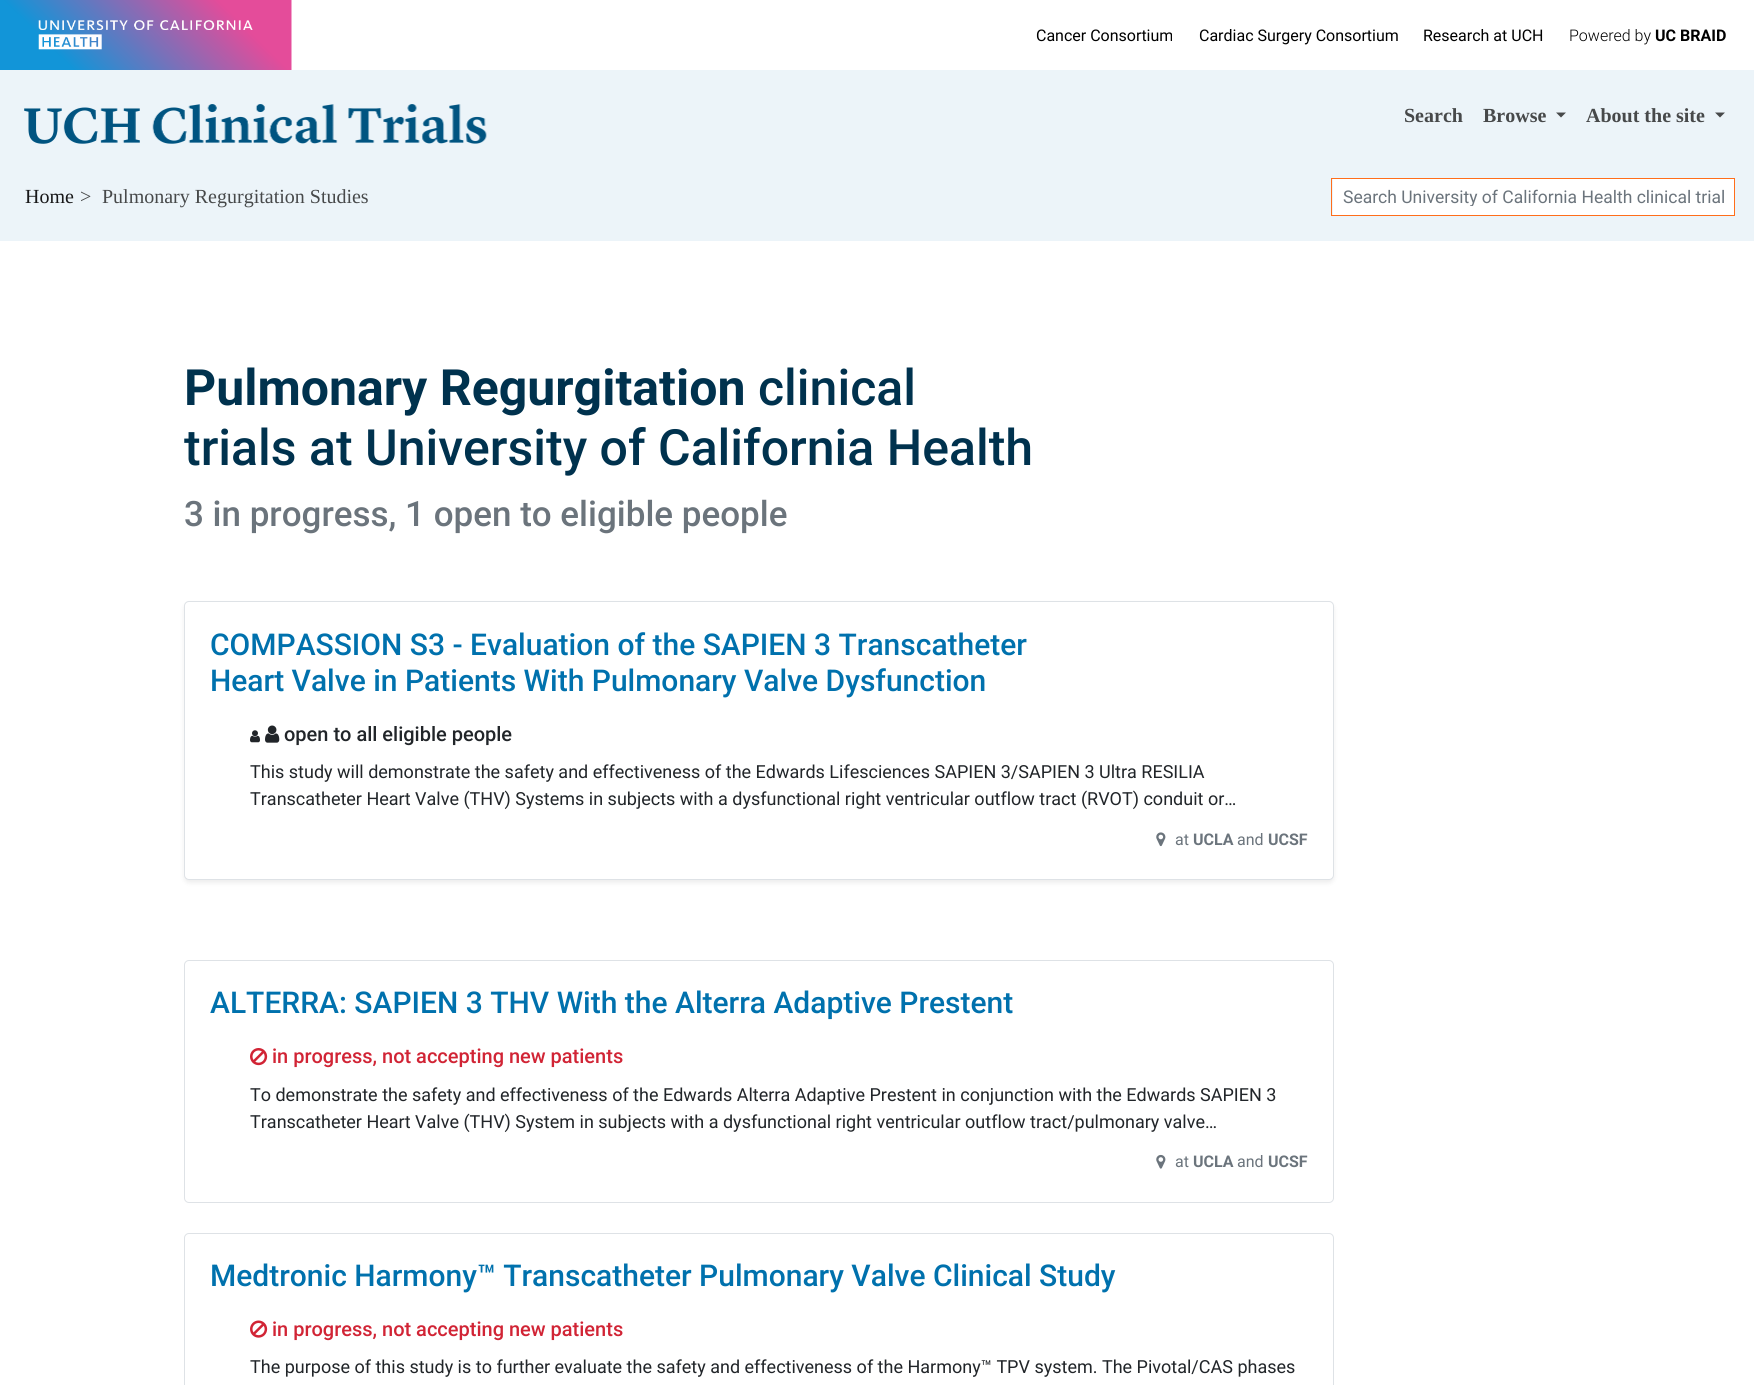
#include <cairo.h>
#include <math.h>
#include <stddef.h>


static void round_rect(cairo_t *cr, double x, double y, double w, double h, double r) {
    cairo_new_sub_path(cr);
    cairo_arc(cr, x + w - r, y + h - r, r, 0, M_PI / 2);
    cairo_arc(cr, x + r, y + h - r, r, M_PI / 2, M_PI);
    cairo_arc(cr, x + r, y + r, r, M_PI, 1.5 * M_PI);
    cairo_arc(cr, x + w - r, y + r, r, 1.5 * M_PI, 2 * M_PI);
    cairo_close_path(cr);
}

static void shadow(cairo_t *cr, double x, double y, double w, double h, double r, double blur, double alpha) {
    cairo_push_group_with_content(cr, CAIRO_CONTENT_ALPHA);
    cairo_set_operator(cr, CAIRO_OPERATOR_SOURCE);
    for (int i = 15; i >= -15 && fmin(w, h) + blur * i / 3 > 0; i -= 2) {
        double e = blur * i / 6;
        cairo_set_source_rgba(cr, 0, 0, 0, alpha * erfc((i - 1) / 8.5) / 2);
        round_rect(cr, x - e, y - e, w + 2 * e, h + 2 * e, fmax(0, fmin(r + e + blur * .6, fmin(w, h) / 2 + e)));
        cairo_fill(cr);
    }
    cairo_pattern_t *soft = cairo_pop_group(cr);
    cairo_mask(cr, soft);
    cairo_pattern_destroy(soft);
}

static void picture(cairo_t *cr, const char *path, double x, double y, double w, double h) {
    cairo_surface_t *image = cairo_image_surface_create_from_png(path);
    cairo_save(cr);
    cairo_set_source_surface(cr, image, x, y);
    cairo_rectangle(cr, x, y, w, h);
    cairo_fill(cr);
    cairo_restore(cr);
    cairo_surface_destroy(image);
}

int main(void) {
    cairo_surface_t *surface = cairo_image_surface_create(CAIRO_FORMAT_RGB24, 1754, 1385);
    cairo_t *cr = cairo_create(surface);
    cairo_font_options_t *options = cairo_font_options_create();
    cairo_font_options_set_hint_metrics(options, CAIRO_HINT_METRICS_OFF);
    cairo_font_options_set_hint_style(options, CAIRO_HINT_STYLE_NONE);
    cairo_set_font_options(cr, options);
    cairo_set_miter_limit(cr, 4);
    cairo_set_source_rgb(cr, 1, 1, 1);
    cairo_paint(cr);
    picture(cr, "img1.png", 0, 0, 292, 70);
    picture(cr, "img2.png", 38, 20, 215, 30);
    cairo_select_font_face(cr, "Roboto", CAIRO_FONT_SLANT_NORMAL, CAIRO_FONT_WEIGHT_NORMAL);
    cairo_set_font_size(cr, 16);
    cairo_set_source_rgb(cr, 0, 0, 0);
    cairo_move_to(cr, 1036, 41);
    cairo_show_text(cr, "Cancer Consortium");
    cairo_move_to(cr, 1199, 41);
    cairo_show_text(cr, "Cardiac Surgery Consortium");
    cairo_move_to(cr, 1423, 41);
    cairo_show_text(cr, "Research at UCH");
    cairo_select_font_face(cr, "Roboto Light", CAIRO_FONT_SLANT_NORMAL, CAIRO_FONT_WEIGHT_NORMAL);
    cairo_move_to(cr, 1569, 41);
    cairo_show_text(cr, "Powered by");
    cairo_select_font_face(cr, "Roboto", CAIRO_FONT_SLANT_NORMAL, CAIRO_FONT_WEIGHT_BOLD);
    cairo_move_to(cr, 1655, 41);
    cairo_show_text(cr, "UC BRAID");
    cairo_set_source_rgb(cr, 0.922, 0.957, 0.973);
    cairo_rectangle(cr, 0, 70, 1754, 171);
    cairo_fill(cr);
    picture(cr, "img3.png", 24, 104, 463, 40);
    cairo_select_font_face(cr, "Liberation Serif", CAIRO_FONT_SLANT_NORMAL, CAIRO_FONT_WEIGHT_BOLD);
    cairo_set_font_size(cr, 20);
    cairo_set_source_rgb(cr, 0.278, 0.286, 0.29);
    cairo_move_to(cr, 1404, 122);
    cairo_show_text(cr, "Search");
    cairo_move_to(cr, 1483, 122);
    cairo_show_text(cr, "Browse");
    cairo_new_path(cr);
    cairo_move_to(cr, 1556, 112.5);
    cairo_line_to(cr, 1566, 112.5);
    cairo_line_to(cr, 1561, 117.5);
    cairo_close_path(cr);
    cairo_fill(cr);
    cairo_move_to(cr, 1586, 122);
    cairo_show_text(cr, "About the site");
    cairo_new_path(cr);
    cairo_move_to(cr, 1715, 112.5);
    cairo_line_to(cr, 1725, 112.5);
    cairo_line_to(cr, 1720, 117.5);
    cairo_close_path(cr);
    cairo_fill(cr);
    cairo_select_font_face(cr, "Liberation Serif", CAIRO_FONT_SLANT_NORMAL, CAIRO_FONT_WEIGHT_NORMAL);
    cairo_set_source_rgb(cr, 0.094, 0.094, 0.098);
    cairo_move_to(cr, 25, 203);
    cairo_show_text(cr, "Home");
    cairo_set_source_rgb(cr, 0.278, 0.286, 0.29);
    cairo_move_to(cr, 80, 203);
    cairo_show_text(cr, ">");
    cairo_move_to(cr, 102, 203);
    cairo_show_text(cr, "Pulmonary Regurgitation Studies");
    cairo_set_source_rgb(cr, 1, 1, 1);
    cairo_rectangle(cr, 1333, 179, 401, 36);
    cairo_fill(cr);
    cairo_rectangle(cr, 1331.5, 178.5, 403, 37);
    cairo_set_source_rgb(cr, 1, 0.431, 0.106);
    cairo_set_line_width(cr, 1);
    cairo_stroke(cr);
    cairo_save(cr);
    cairo_rectangle(cr, 1343, 186, 381, 20);
    cairo_clip(cr);
    cairo_select_font_face(cr, "Roboto", CAIRO_FONT_SLANT_NORMAL, CAIRO_FONT_WEIGHT_NORMAL);
    cairo_set_font_size(cr, 17.5);
    cairo_set_source_rgb(cr, 0.42, 0.455, 0.486);
    cairo_move_to(cr, 1343, 203);
    cairo_show_text(cr, "Search University of California Health clinical trial");
    cairo_restore(cr);
    cairo_select_font_face(cr, "Roboto", CAIRO_FONT_SLANT_NORMAL, CAIRO_FONT_WEIGHT_BOLD);
    cairo_set_font_size(cr, 50);
    cairo_set_source_rgb(cr, 0, 0.196, 0.306);
    cairo_move_to(cr, 184, 405);
    cairo_show_text(cr, "Pulmonary Regurgitation");
    cairo_select_font_face(cr, "Roboto Medium", CAIRO_FONT_SLANT_NORMAL, CAIRO_FONT_WEIGHT_NORMAL);
    cairo_move_to(cr, 758, 405);
    cairo_show_text(cr, "clinical");
    cairo_move_to(cr, 184, 465);
    cairo_show_text(cr, "trials at University of California Health");
    cairo_set_font_size(cr, 35);
    cairo_set_source_rgb(cr, 0.42, 0.455, 0.486);
    cairo_move_to(cr, 184, 526);
    cairo_show_text(cr, "3 in progress, 1 open to eligible people");
    cairo_set_source_rgb(cr, 0, 0, 0);
    shadow(cr, 184, 604, 1150, 279, 5, 2.5, 0.07);
    cairo_set_source_rgb(cr, 1, 1, 1);
    round_rect(cr, 184.5, 601.5, 1149, 278, 4.5);
    cairo_fill_preserve(cr);
    cairo_set_source_rgb(cr, 0.871, 0.886, 0.902);
    cairo_stroke(cr);
    cairo_set_font_size(cr, 30);
    cairo_set_source_rgb(cr, 0, 0.443, 0.678);
    cairo_move_to(cr, 210, 655);
    cairo_show_text(cr, "COMPASSION S3 - Evaluation of the SAPIEN 3 Transcatheter");
    cairo_move_to(cr, 210, 691);
    cairo_show_text(cr, "Heart Valve in Patients With Pulmonary Valve Dysfunction");
    picture(cr, "img4.png", 250, 730, 10, 13);
    picture(cr, "img5.png", 265, 725, 15, 18);
    cairo_set_font_size(cr, 20);
    cairo_set_source_rgb(cr, 0.129, 0.145, 0.161);
    cairo_move_to(cr, 284, 741);
    cairo_show_text(cr, "open to all eligible people");
    cairo_select_font_face(cr, "Roboto", CAIRO_FONT_SLANT_NORMAL, CAIRO_FONT_WEIGHT_NORMAL);
    cairo_set_font_size(cr, 18);
    cairo_move_to(cr, 250, 778);
    cairo_show_text(cr, "This study will demonstrate the safety and effectiveness of the Edwards Lifesciences SAPIEN 3/SAPIEN 3 Ultra RESILIA");
    cairo_move_to(cr, 250, 805);
    cairo_show_text(cr, "Transcatheter Heart Valve (THV) Systems in subjects with a dysfunctional right ventricular outflow tract (RVOT) conduit or…");
    picture(cr, "img6.png", 1156, 832, 10, 15);
    cairo_set_font_size(cr, 16);
    cairo_set_source_rgb(cr, 0.42, 0.455, 0.486);
    cairo_move_to(cr, 1175, 845);
    cairo_show_text(cr, "at");
    cairo_select_font_face(cr, "Roboto", CAIRO_FONT_SLANT_NORMAL, CAIRO_FONT_WEIGHT_BOLD);
    cairo_move_to(cr, 1193, 845);
    cairo_show_text(cr, "UCLA");
    cairo_select_font_face(cr, "Roboto", CAIRO_FONT_SLANT_NORMAL, CAIRO_FONT_WEIGHT_NORMAL);
    cairo_move_to(cr, 1237, 845);
    cairo_show_text(cr, "and");
    cairo_select_font_face(cr, "Roboto", CAIRO_FONT_SLANT_NORMAL, CAIRO_FONT_WEIGHT_BOLD);
    cairo_move_to(cr, 1268, 845);
    cairo_show_text(cr, "UCSF");
    round_rect(cr, 184.5, 960.5, 1149, 242, 4.5);
    cairo_set_source_rgb(cr, 0.871, 0.886, 0.902);
    cairo_stroke(cr);
    cairo_select_font_face(cr, "Roboto Medium", CAIRO_FONT_SLANT_NORMAL, CAIRO_FONT_WEIGHT_NORMAL);
    cairo_set_font_size(cr, 30);
    cairo_set_source_rgb(cr, 0, 0.443, 0.678);
    cairo_move_to(cr, 210, 1013);
    cairo_show_text(cr, "ALTERRA: SAPIEN 3 THV With the Alterra Adaptive Prestent");
    picture(cr, "img7.png", 250, 1048, 18, 18);
    cairo_set_font_size(cr, 20);
    cairo_set_source_rgb(cr, 0.82, 0.141, 0.208);
    cairo_move_to(cr, 272, 1063);
    cairo_show_text(cr, "in progress, not accepting new patients");
    cairo_select_font_face(cr, "Roboto", CAIRO_FONT_SLANT_NORMAL, CAIRO_FONT_WEIGHT_NORMAL);
    cairo_set_font_size(cr, 18);
    cairo_set_source_rgb(cr, 0.129, 0.145, 0.161);
    cairo_move_to(cr, 250, 1101);
    cairo_show_text(cr, "To demonstrate the safety and effectiveness of the Edwards Alterra Adaptive Prestent in conjunction with the Edwards SAPIEN 3");
    cairo_move_to(cr, 250, 1128);
    cairo_show_text(cr, "Transcatheter Heart Valve (THV) System in subjects with a dysfunctional right ventricular outflow tract/pulmonary valve…");
    picture(cr, "img8.png", 1156, 1154, 10, 15);
    cairo_set_font_size(cr, 16);
    cairo_set_source_rgb(cr, 0.42, 0.455, 0.486);
    cairo_move_to(cr, 1175, 1167);
    cairo_show_text(cr, "at");
    cairo_select_font_face(cr, "Roboto", CAIRO_FONT_SLANT_NORMAL, CAIRO_FONT_WEIGHT_BOLD);
    cairo_move_to(cr, 1193, 1167);
    cairo_show_text(cr, "UCLA");
    cairo_select_font_face(cr, "Roboto", CAIRO_FONT_SLANT_NORMAL, CAIRO_FONT_WEIGHT_NORMAL);
    cairo_move_to(cr, 1237, 1167);
    cairo_show_text(cr, "and");
    cairo_select_font_face(cr, "Roboto", CAIRO_FONT_SLANT_NORMAL, CAIRO_FONT_WEIGHT_BOLD);
    cairo_move_to(cr, 1268, 1167);
    cairo_show_text(cr, "UCSF");
    round_rect(cr, 184.5, 1233.5, 1149, 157, 4.5);
    cairo_set_source_rgb(cr, 0.871, 0.886, 0.902);
    cairo_stroke(cr);
    cairo_select_font_face(cr, "Roboto Medium", CAIRO_FONT_SLANT_NORMAL, CAIRO_FONT_WEIGHT_NORMAL);
    cairo_set_font_size(cr, 30);
    cairo_set_source_rgb(cr, 0, 0.443, 0.678);
    cairo_move_to(cr, 210, 1286);
    cairo_show_text(cr, "Medtronic Harmony™ Transcatheter Pulmonary Valve Clinical Study");
    picture(cr, "img9.png", 250, 1320, 18, 18);
    cairo_set_font_size(cr, 20);
    cairo_set_source_rgb(cr, 0.82, 0.141, 0.208);
    cairo_move_to(cr, 272, 1336);
    cairo_show_text(cr, "in progress, not accepting new patients");
    cairo_select_font_face(cr, "Roboto", CAIRO_FONT_SLANT_NORMAL, CAIRO_FONT_WEIGHT_NORMAL);
    cairo_set_font_size(cr, 18);
    cairo_set_source_rgb(cr, 0.129, 0.145, 0.161);
    cairo_move_to(cr, 250, 1373);
    cairo_show_text(cr, "The purpose of this study is to further evaluate the safety and effectiveness of the Harmony™ TPV system. The Pivotal/CAS phases");
    cairo_surface_write_to_png(surface, "page.png");
    cairo_font_options_destroy(options);
    cairo_destroy(cr);
    cairo_surface_destroy(surface);
    return 0;
}
